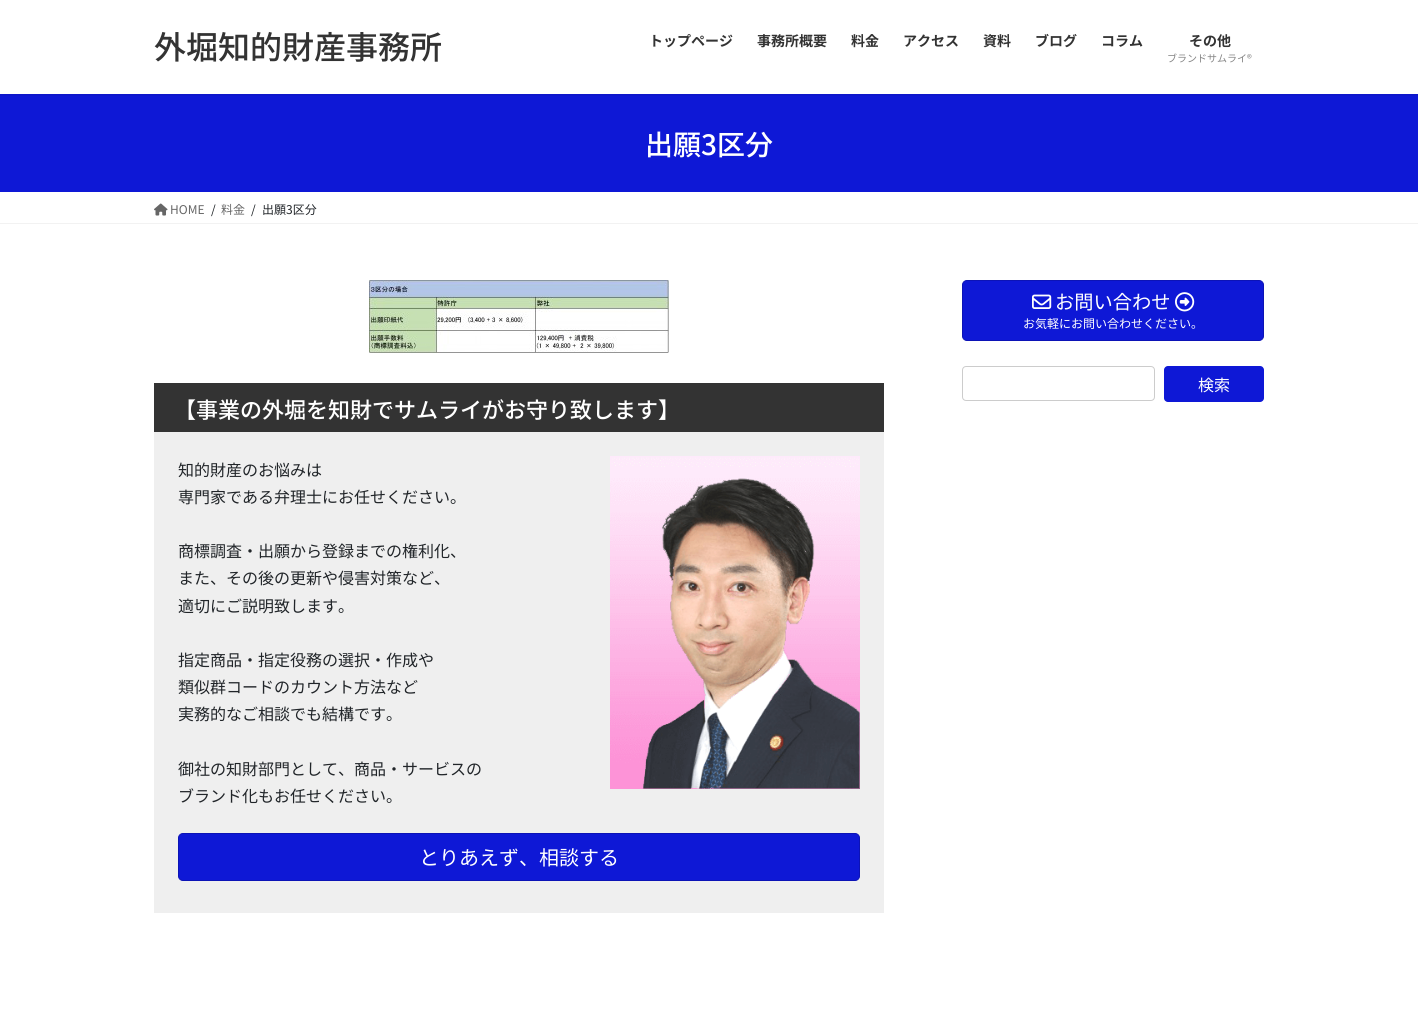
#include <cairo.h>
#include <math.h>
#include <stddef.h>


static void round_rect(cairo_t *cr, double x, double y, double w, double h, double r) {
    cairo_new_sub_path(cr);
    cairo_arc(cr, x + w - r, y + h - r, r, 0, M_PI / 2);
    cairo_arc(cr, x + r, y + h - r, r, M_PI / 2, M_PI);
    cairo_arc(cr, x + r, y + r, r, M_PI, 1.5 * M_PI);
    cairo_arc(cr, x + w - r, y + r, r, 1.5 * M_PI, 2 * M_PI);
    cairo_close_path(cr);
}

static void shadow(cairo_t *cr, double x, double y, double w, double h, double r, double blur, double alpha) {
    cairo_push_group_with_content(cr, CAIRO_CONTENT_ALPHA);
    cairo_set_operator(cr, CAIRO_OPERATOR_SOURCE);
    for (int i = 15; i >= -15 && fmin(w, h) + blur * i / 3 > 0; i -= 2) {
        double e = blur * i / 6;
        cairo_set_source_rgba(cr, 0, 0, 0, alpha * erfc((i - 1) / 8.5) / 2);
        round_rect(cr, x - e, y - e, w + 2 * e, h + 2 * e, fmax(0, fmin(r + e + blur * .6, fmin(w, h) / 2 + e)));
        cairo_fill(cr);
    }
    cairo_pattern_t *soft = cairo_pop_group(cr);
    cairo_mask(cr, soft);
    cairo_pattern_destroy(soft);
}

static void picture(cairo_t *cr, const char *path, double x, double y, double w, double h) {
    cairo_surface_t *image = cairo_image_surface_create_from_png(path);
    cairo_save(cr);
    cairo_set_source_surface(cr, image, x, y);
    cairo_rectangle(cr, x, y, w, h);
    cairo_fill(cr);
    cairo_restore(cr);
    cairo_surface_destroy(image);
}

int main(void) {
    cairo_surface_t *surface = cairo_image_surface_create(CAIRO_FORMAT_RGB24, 1418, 1009);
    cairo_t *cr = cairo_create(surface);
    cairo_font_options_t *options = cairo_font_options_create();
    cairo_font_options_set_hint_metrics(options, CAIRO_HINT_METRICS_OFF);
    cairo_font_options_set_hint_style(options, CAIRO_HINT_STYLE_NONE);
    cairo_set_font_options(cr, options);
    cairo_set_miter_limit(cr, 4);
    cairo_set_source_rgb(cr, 1, 1, 1);
    cairo_paint(cr);
    cairo_set_source_rgb(cr, 0.055, 0.094, 0.839);
    cairo_rectangle(cr, 0, 94, 1418, 98);
    cairo_fill(cr);
    cairo_save(cr);
    cairo_rectangle(cr, 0, 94, 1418, 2);
    cairo_clip(cr);
    cairo_set_source_rgb(cr, 0, 0, 0);
    shadow(cr, 0, 1, 1418, 94, 0, 1.5, 0.1);
    cairo_restore(cr);
    cairo_select_font_face(cr, "Noto Sans JP Medium", CAIRO_FONT_SLANT_NORMAL, CAIRO_FONT_WEIGHT_NORMAL);
    cairo_set_font_size(cr, 32);
    cairo_set_source_rgb(cr, 0.2, 0.2, 0.2);
    cairo_move_to(cr, 154, 59);
    cairo_show_text(cr, "外堀知的財産事務所");
    cairo_select_font_face(cr, "Noto Sans JP", CAIRO_FONT_SLANT_NORMAL, CAIRO_FONT_WEIGHT_BOLD);
    cairo_set_font_size(cr, 14);
    cairo_move_to(cr, 649, 46);
    cairo_show_text(cr, "トップページ");
    cairo_move_to(cr, 757, 46);
    cairo_show_text(cr, "事務所概要");
    cairo_move_to(cr, 851, 46);
    cairo_show_text(cr, "料金");
    cairo_move_to(cr, 903, 46);
    cairo_show_text(cr, "アクセス");
    cairo_move_to(cr, 983, 46);
    cairo_show_text(cr, "資料");
    cairo_move_to(cr, 1035, 46);
    cairo_show_text(cr, "ブログ");
    cairo_move_to(cr, 1101, 46);
    cairo_show_text(cr, "コラム");
    cairo_move_to(cr, 1189, 46);
    cairo_show_text(cr, "その他");
    cairo_select_font_face(cr, "Noto Sans JP", CAIRO_FONT_SLANT_NORMAL, CAIRO_FONT_WEIGHT_NORMAL);
    cairo_set_font_size(cr, 10);
    cairo_set_source_rgb(cr, 0.522, 0.522, 0.522);
    cairo_move_to(cr, 1167, 62);
    cairo_show_text(cr, "ブランドサムライ®");
    cairo_select_font_face(cr, "Noto Sans JP Medium", CAIRO_FONT_SLANT_NORMAL, CAIRO_FONT_WEIGHT_NORMAL);
    cairo_set_font_size(cr, 28);
    cairo_set_source_rgb(cr, 1, 1, 1);
    cairo_move_to(cr, 645, 155);
    cairo_show_text(cr, "出願3区分");
    cairo_set_source_rgb(cr, 0.949, 0.949, 0.949);
    cairo_rectangle(cr, 0, 223, 1418, 1);
    cairo_fill(cr);
    picture(cr, "img1.png", 154, 203, 14, 13);
    cairo_select_font_face(cr, "Noto Sans JP", CAIRO_FONT_SLANT_NORMAL, CAIRO_FONT_WEIGHT_NORMAL);
    cairo_set_font_size(cr, 12);
    cairo_set_source_rgb(cr, 0.4, 0.4, 0.4);
    cairo_move_to(cr, 170, 214);
    cairo_show_text(cr, "HOME");
    cairo_set_source_rgb(cr, 0.129, 0.145, 0.161);
    cairo_move_to(cr, 211, 214);
    cairo_show_text(cr, "/");
    cairo_set_source_rgb(cr, 0.4, 0.4, 0.4);
    cairo_move_to(cr, 221, 214);
    cairo_show_text(cr, "料金");
    cairo_set_source_rgb(cr, 0.129, 0.145, 0.161);
    cairo_move_to(cr, 251, 214);
    cairo_show_text(cr, "/");
    cairo_move_to(cr, 262, 214);
    cairo_show_text(cr, "出願3区分");
    cairo_set_source_rgb(cr, 0.055, 0.094, 0.839);
    round_rect(cr, 962.5, 280.5, 301, 60, 4.5);
    cairo_fill_preserve(cr);
    cairo_set_source_rgb(cr, 0.047, 0.078, 0.714);
    cairo_set_line_width(cr, 1);
    cairo_stroke(cr);
    picture(cr, "img2.png", 1032, 294, 20, 15);
    cairo_set_font_size(cr, 19.25);
    cairo_set_source_rgb(cr, 1, 1, 1);
    cairo_move_to(cr, 1055, 309);
    cairo_show_text(cr, "お問い合わせ");
    picture(cr, "img3.png", 1175, 292, 20, 20);
    cairo_set_font_size(cr, 12);
    cairo_move_to(cr, 1023, 328);
    cairo_show_text(cr, "お気軽にお問い合わせください。");
    round_rect(cr, 962.5, 366.5, 192, 34, 3.5);
    cairo_set_source_rgb(cr, 0.8, 0.8, 0.8);
    cairo_stroke(cr);
    cairo_set_source_rgb(cr, 0.055, 0.094, 0.839);
    round_rect(cr, 1164, 366, 100, 36, 4);
    cairo_fill(cr);
    cairo_set_font_size(cr, 16);
    cairo_set_source_rgb(cr, 1, 1, 1);
    cairo_move_to(cr, 1198, 391);
    cairo_show_text(cr, "検索");
    picture(cr, "img4.png", 369, 280, 300, 73);
    cairo_set_source_rgb(cr, 0.937, 0.937, 0.937);
    cairo_rectangle(cr, 154, 432, 730, 481);
    cairo_fill(cr);
    cairo_set_source_rgb(cr, 0.2, 0.2, 0.2);
    cairo_rectangle(cr, 154, 383, 730, 49);
    cairo_fill(cr);
    cairo_select_font_face(cr, "Noto Sans JP Medium", CAIRO_FONT_SLANT_NORMAL, CAIRO_FONT_WEIGHT_NORMAL);
    cairo_set_font_size(cr, 22);
    cairo_set_source_rgb(cr, 1, 1, 1);
    cairo_move_to(cr, 174, 418);
    cairo_show_text(cr, "【事業の外堀を知財でサムライがお守り致します】");
    cairo_select_font_face(cr, "Noto Sans JP", CAIRO_FONT_SLANT_NORMAL, CAIRO_FONT_WEIGHT_NORMAL);
    cairo_set_font_size(cr, 16);
    cairo_set_source_rgb(cr, 0.129, 0.145, 0.161);
    cairo_move_to(cr, 178, 476);
    cairo_show_text(cr, "知的財産のお悩みは");
    cairo_move_to(cr, 178, 503);
    cairo_show_text(cr, "専門家である弁理士にお任せください。");
    cairo_move_to(cr, 178, 557);
    cairo_show_text(cr, "商標調査・出願から登録までの権利化、");
    cairo_move_to(cr, 178, 584);
    cairo_show_text(cr, "また、その後の更新や侵害対策など、");
    cairo_move_to(cr, 178, 612);
    cairo_show_text(cr, "適切にご説明致します。");
    cairo_move_to(cr, 178, 666);
    cairo_show_text(cr, "指定商品・指定役務の選択・作成や");
    cairo_move_to(cr, 178, 693);
    cairo_show_text(cr, "類似群コードのカウント方法など");
    cairo_move_to(cr, 178, 720);
    cairo_show_text(cr, "実務的なご相談でも結構です。");
    cairo_move_to(cr, 178, 775);
    cairo_show_text(cr, "御社の知財部門として、商品・サービスの");
    cairo_move_to(cr, 178, 802);
    cairo_show_text(cr, "ブランド化もお任せください。");
    picture(cr, "img5.png", 610, 456, 250, 333);
    cairo_set_source_rgb(cr, 0.055, 0.094, 0.839);
    round_rect(cr, 178.5, 833.5, 681, 47, 4.5);
    cairo_fill_preserve(cr);
    cairo_set_source_rgb(cr, 0.047, 0.078, 0.714);
    cairo_stroke(cr);
    cairo_set_font_size(cr, 20);
    cairo_set_source_rgb(cr, 1, 1, 1);
    cairo_move_to(cr, 419, 865);
    cairo_show_text(cr, "とりあえず、相談する");
    cairo_surface_write_to_png(surface, "page.png");
    cairo_font_options_destroy(options);
    cairo_destroy(cr);
    cairo_surface_destroy(surface);
    return 0;
}
